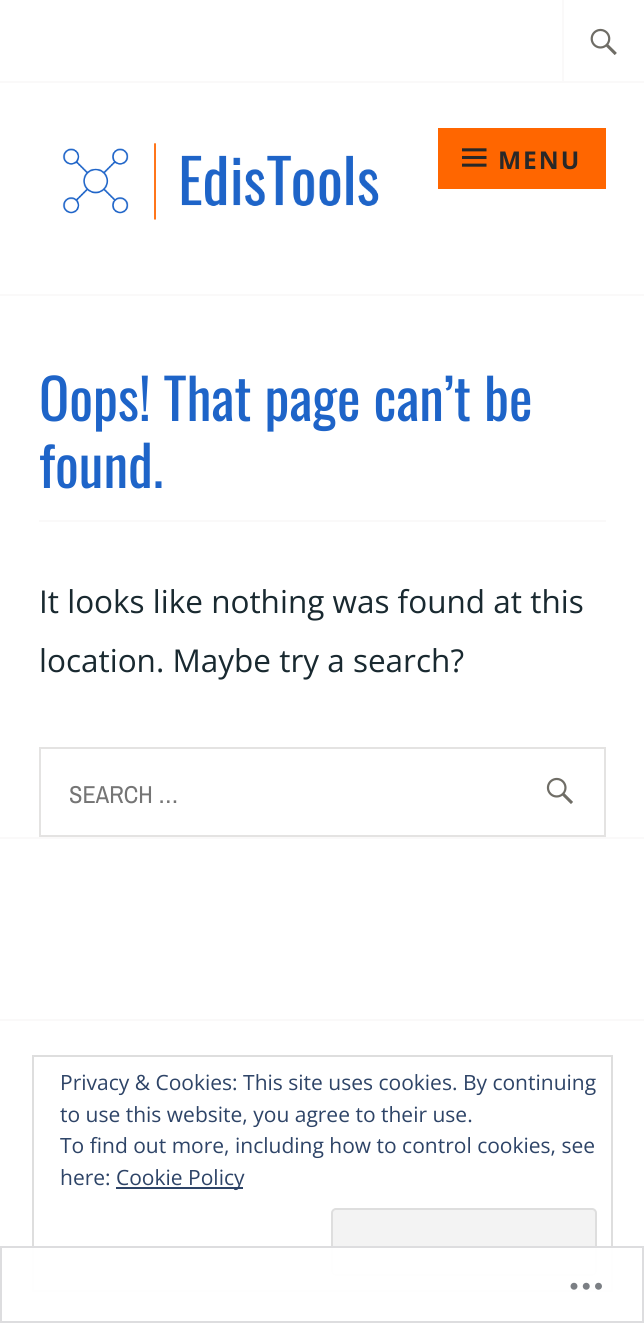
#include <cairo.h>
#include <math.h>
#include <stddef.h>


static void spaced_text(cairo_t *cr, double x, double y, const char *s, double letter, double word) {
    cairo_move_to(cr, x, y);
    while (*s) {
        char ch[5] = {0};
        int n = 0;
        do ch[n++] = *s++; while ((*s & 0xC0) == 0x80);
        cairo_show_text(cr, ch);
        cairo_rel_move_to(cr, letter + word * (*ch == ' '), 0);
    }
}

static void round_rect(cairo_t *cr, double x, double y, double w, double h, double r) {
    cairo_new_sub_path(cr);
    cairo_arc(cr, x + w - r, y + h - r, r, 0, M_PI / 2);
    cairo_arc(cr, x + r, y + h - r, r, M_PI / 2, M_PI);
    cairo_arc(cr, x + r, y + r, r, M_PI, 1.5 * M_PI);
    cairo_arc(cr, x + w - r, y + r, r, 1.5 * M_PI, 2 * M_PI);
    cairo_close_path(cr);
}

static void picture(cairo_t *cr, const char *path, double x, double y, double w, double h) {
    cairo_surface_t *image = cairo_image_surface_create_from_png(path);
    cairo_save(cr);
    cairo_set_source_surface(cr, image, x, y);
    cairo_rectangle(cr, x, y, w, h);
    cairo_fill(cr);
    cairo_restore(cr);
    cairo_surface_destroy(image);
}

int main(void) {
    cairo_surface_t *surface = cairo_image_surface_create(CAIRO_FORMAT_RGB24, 644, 1323);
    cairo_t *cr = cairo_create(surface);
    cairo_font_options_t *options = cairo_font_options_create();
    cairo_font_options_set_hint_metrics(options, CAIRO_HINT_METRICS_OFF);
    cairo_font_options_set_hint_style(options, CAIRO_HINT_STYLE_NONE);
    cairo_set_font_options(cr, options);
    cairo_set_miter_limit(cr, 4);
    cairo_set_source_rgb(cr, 1, 1, 1);
    cairo_paint(cr);
    cairo_set_source_rgb(cr, 0.98, 0.976, 0.973);
    cairo_rectangle(cr, 0, 294, 644, 2);
    cairo_fill(cr);
    cairo_rectangle(cr, 0, 81, 644, 2);
    cairo_fill(cr);
    cairo_rectangle(cr, 562, 0, 2, 81);
    cairo_fill(cr);
    picture(cr, "img1.png", 590, 28, 27, 27);
    picture(cr, "img2.png", 62, 143, 317, 77);
    cairo_set_source_rgb(cr, 1, 0.4, 0);
    cairo_rectangle(cr, 438, 128, 168, 61);
    cairo_fill(cr);
    picture(cr, "img3.png", 462, 148, 25, 19);
    cairo_select_font_face(cr, "Open Sans", CAIRO_FONT_SLANT_NORMAL, CAIRO_FONT_WEIGHT_BOLD);
    cairo_set_font_size(cr, 24.5);
    cairo_set_source_rgb(cr, 0.157, 0.157, 0.157);
    spaced_text(cr, 498, 169, "MENU", 2, 0);
    cairo_set_source_rgb(cr, 0.98, 0.976, 0.973);
    cairo_rectangle(cr, 39, 520, 567, 2);
    cairo_fill(cr);
    cairo_select_font_face(cr, "Oswald", CAIRO_FONT_SLANT_NORMAL, CAIRO_FONT_WEIGHT_NORMAL);
    cairo_set_font_size(cr, 56);
    cairo_set_source_rgb(cr, 0.118, 0.392, 0.784);
    cairo_move_to(cr, 39, 421);
    cairo_show_text(cr, "Oops! That page can’t be");
    cairo_move_to(cr, 39, 488);
    cairo_show_text(cr, "found.");
    cairo_select_font_face(cr, "Open Sans", CAIRO_FONT_SLANT_NORMAL, CAIRO_FONT_WEIGHT_NORMAL);
    cairo_set_font_size(cr, 31.5);
    cairo_set_source_rgb(cr, 0.098, 0.161, 0.188);
    cairo_move_to(cr, 39, 613);
    cairo_show_text(cr, "It looks like nothing was found at this");
    cairo_move_to(cr, 39, 672);
    cairo_show_text(cr, "location. Maybe try a search?");
    cairo_rectangle(cr, 40, 748, 565, 88);
    cairo_set_source_rgb(cr, 0.894, 0.89, 0.886);
    cairo_stroke(cr);
    cairo_select_font_face(cr, "Archivo Narrow", CAIRO_FONT_SLANT_NORMAL, CAIRO_FONT_WEIGHT_NORMAL);
    cairo_set_font_size(cr, 24.5);
    cairo_set_source_rgb(cr, 0.459, 0.459, 0.459);
    cairo_move_to(cr, 69, 803);
    cairo_show_text(cr, "SEARCH …");
    picture(cr, "img4.png", 546, 777, 27, 27);
    cairo_set_source_rgb(cr, 0.98, 0.976, 0.973);
    cairo_rectangle(cr, 0, 837, 644, 2);
    cairo_fill(cr);
    cairo_rectangle(cr, 0, 1019, 644, 2);
    cairo_fill(cr);
    cairo_rectangle(cr, 33, 1056, 579, 235);
    cairo_set_source_rgb(cr, 0.871, 0.871, 0.871);
    cairo_stroke(cr);
    cairo_select_font_face(cr, "Open Sans", CAIRO_FONT_SLANT_NORMAL, CAIRO_FONT_WEIGHT_NORMAL);
    cairo_set_font_size(cr, 21);
    cairo_set_source_rgb(cr, 0.18, 0.267, 0.404);
    cairo_move_to(cr, 60, 1090);
    cairo_show_text(cr, "Privacy & Cookies: This site uses cookies. By continuing");
    cairo_move_to(cr, 60, 1122);
    cairo_show_text(cr, "to use this website, you agree to their use.");
    cairo_move_to(cr, 60, 1153);
    cairo_show_text(cr, "To find out more, including how to control cookies, see");
    cairo_move_to(cr, 60, 1185);
    cairo_show_text(cr, "here:");
    cairo_rectangle(cr, 116, 1187, 127, 2);
    cairo_fill(cr);
    cairo_move_to(cr, 116, 1185);
    cairo_show_text(cr, "Cookie Policy");
    cairo_set_source_rgb(cr, 0.953, 0.953, 0.953);
    round_rect(cr, 332, 1209, 264, 66, 4);
    cairo_fill_preserve(cr);
    cairo_set_source_rgb(cr, 0.871, 0.871, 0.871);
    cairo_stroke(cr);
    cairo_set_source_rgba(cr, 1, 1, 1, 0.98);
    cairo_rectangle(cr, 32, 1246, 581, 46);
    cairo_fill(cr);
    cairo_rectangle(cr, 1, 1247, 642, 75);
    cairo_set_source_rgba(cr, 0.863, 0.863, 0.871, 0.98);
    cairo_stroke(cr);
    picture(cr, "img5.png", 570, 1282, 32, 8);
    cairo_surface_write_to_png(surface, "page.png");
    cairo_font_options_destroy(options);
    cairo_destroy(cr);
    cairo_surface_destroy(surface);
    return 0;
}
